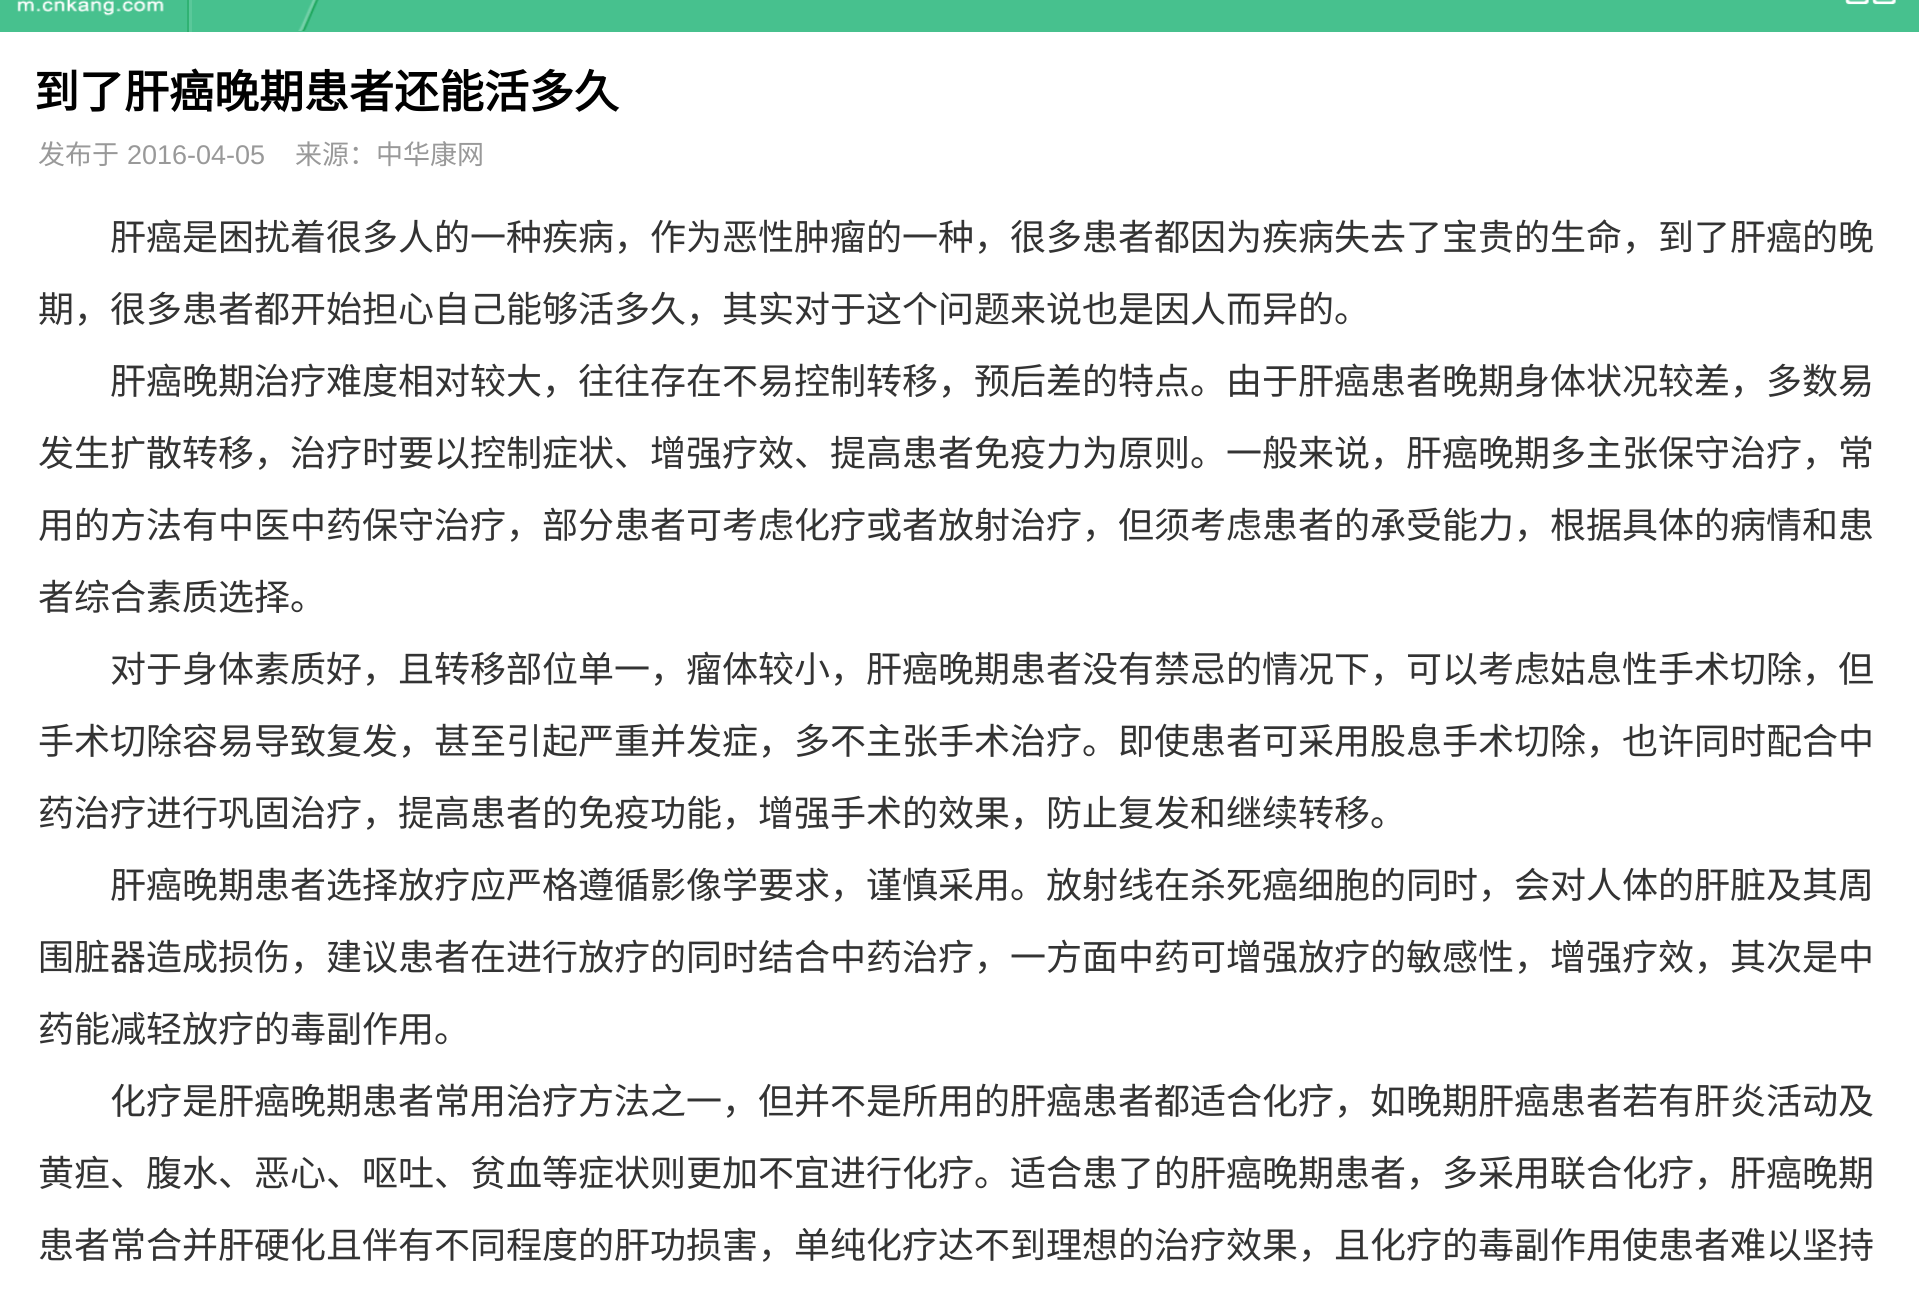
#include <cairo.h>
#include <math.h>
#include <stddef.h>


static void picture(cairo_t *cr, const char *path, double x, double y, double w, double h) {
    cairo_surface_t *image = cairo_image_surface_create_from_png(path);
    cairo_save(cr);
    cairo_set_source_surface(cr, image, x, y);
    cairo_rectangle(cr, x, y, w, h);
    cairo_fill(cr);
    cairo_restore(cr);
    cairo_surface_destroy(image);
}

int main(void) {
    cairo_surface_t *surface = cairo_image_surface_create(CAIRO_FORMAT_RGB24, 1919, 1310);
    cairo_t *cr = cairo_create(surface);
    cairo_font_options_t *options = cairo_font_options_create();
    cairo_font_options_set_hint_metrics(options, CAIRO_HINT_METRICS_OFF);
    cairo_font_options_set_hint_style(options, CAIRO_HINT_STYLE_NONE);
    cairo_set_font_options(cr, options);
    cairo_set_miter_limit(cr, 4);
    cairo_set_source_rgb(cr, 1, 1, 1);
    cairo_paint(cr);
    cairo_set_source_rgb(cr, 0.278, 0.757, 0.557);
    cairo_rectangle(cr, 0, 0, 1919, 32);
    cairo_fill(cr);
    picture(cr, "img1.png", 17, 0, 147, 16);
    cairo_set_source_rgb(cr, 0.353, 0.784, 0.604);
    cairo_rectangle(cr, 189, 0, 3, 32);
    cairo_fill(cr);
    cairo_set_source_rgb(cr, 0.188, 0.698, 0.451);
    cairo_rectangle(cr, 187, 0, 2, 32);
    cairo_fill(cr);
    picture(cr, "img2.png", 298, 0, 21, 31);
    picture(cr, "img3.png", 1845, 0, 51, 5);
    cairo_select_font_face(cr, "Noto Sans CJK SC", CAIRO_FONT_SLANT_NORMAL, CAIRO_FONT_WEIGHT_BOLD);
    cairo_set_font_size(cr, 45);
    cairo_set_source_rgb(cr, 0, 0, 0);
    cairo_move_to(cr, 34, 108);
    cairo_show_text(cr, "到了肝癌晚期患者还能活多久");
    cairo_select_font_face(cr, "Noto Sans CJK SC", CAIRO_FONT_SLANT_NORMAL, CAIRO_FONT_WEIGHT_NORMAL);
    cairo_set_font_size(cr, 27);
    cairo_set_source_rgb(cr, 0.6, 0.6, 0.6);
    cairo_move_to(cr, 38, 164);
    cairo_show_text(cr, "发布于");
    cairo_select_font_face(cr, "Liberation Sans", CAIRO_FONT_SLANT_NORMAL, CAIRO_FONT_WEIGHT_NORMAL);
    cairo_move_to(cr, 127, 164);
    cairo_show_text(cr, "2016-04-05");
    cairo_select_font_face(cr, "Noto Sans CJK SC", CAIRO_FONT_SLANT_NORMAL, CAIRO_FONT_WEIGHT_NORMAL);
    cairo_move_to(cr, 295, 164);
    cairo_show_text(cr, "来源：中华康网");
    cairo_set_font_size(cr, 36);
    cairo_set_source_rgb(cr, 0.2, 0.2, 0.2);
    cairo_move_to(cr, 110, 250);
    cairo_show_text(cr, "肝癌是困扰着很多人的一种疾病，作为恶性肿瘤的一种，很多患者都因为疾病失去了宝贵的生命，到了肝癌的晚");
    cairo_move_to(cr, 38, 322);
    cairo_show_text(cr, "期，很多患者都开始担心自己能够活多久，其实对于这个问题来说也是因人而异的。");
    cairo_move_to(cr, 110, 394);
    cairo_show_text(cr, "肝癌晚期治疗难度相对较大，往往存在不易控制转移，预后差的特点。由于肝癌患者晚期身体状况较差，多数易");
    cairo_move_to(cr, 38, 466);
    cairo_show_text(cr, "发生扩散转移，治疗时要以控制症状、增强疗效、提高患者免疫力为原则。一般来说，肝癌晚期多主张保守治疗，常");
    cairo_move_to(cr, 38, 538);
    cairo_show_text(cr, "用的方法有中医中药保守治疗，部分患者可考虑化疗或者放射治疗，但须考虑患者的承受能力，根据具体的病情和患");
    cairo_move_to(cr, 38, 610);
    cairo_show_text(cr, "者综合素质选择。");
    cairo_move_to(cr, 110, 682);
    cairo_show_text(cr, "对于身体素质好，且转移部位单一，瘤体较小，肝癌晚期患者没有禁忌的情况下，可以考虑姑息性手术切除，但");
    cairo_move_to(cr, 38, 754);
    cairo_show_text(cr, "手术切除容易导致复发，甚至引起严重并发症，多不主张手术治疗。即使患者可采用股息手术切除，也许同时配合中");
    cairo_move_to(cr, 38, 826);
    cairo_show_text(cr, "药治疗进行巩固治疗，提高患者的免疫功能，增强手术的效果，防止复发和继续转移。");
    cairo_move_to(cr, 110, 898);
    cairo_show_text(cr, "肝癌晚期患者选择放疗应严格遵循影像学要求，谨慎采用。放射线在杀死癌细胞的同时，会对人体的肝脏及其周");
    cairo_move_to(cr, 38, 970);
    cairo_show_text(cr, "围脏器造成损伤，建议患者在进行放疗的同时结合中药治疗，一方面中药可增强放疗的敏感性，增强疗效，其次是中");
    cairo_move_to(cr, 38, 1042);
    cairo_show_text(cr, "药能减轻放疗的毒副作用。");
    cairo_move_to(cr, 110, 1114);
    cairo_show_text(cr, "化疗是肝癌晚期患者常用治疗方法之一，但并不是所用的肝癌患者都适合化疗，如晚期肝癌患者若有肝炎活动及");
    cairo_move_to(cr, 38, 1186);
    cairo_show_text(cr, "黄疸、腹水、恶心、呕吐、贫血等症状则更加不宜进行化疗。适合患了的肝癌晚期患者，多采用联合化疗，肝癌晚期");
    cairo_move_to(cr, 38, 1258);
    cairo_show_text(cr, "患者常合并肝硬化且伴有不同程度的肝功损害，单纯化疗达不到理想的治疗效果，且化疗的毒副作用使患者难以坚持");
    cairo_surface_write_to_png(surface, "page.png");
    cairo_font_options_destroy(options);
    cairo_destroy(cr);
    cairo_surface_destroy(surface);
    return 0;
}
